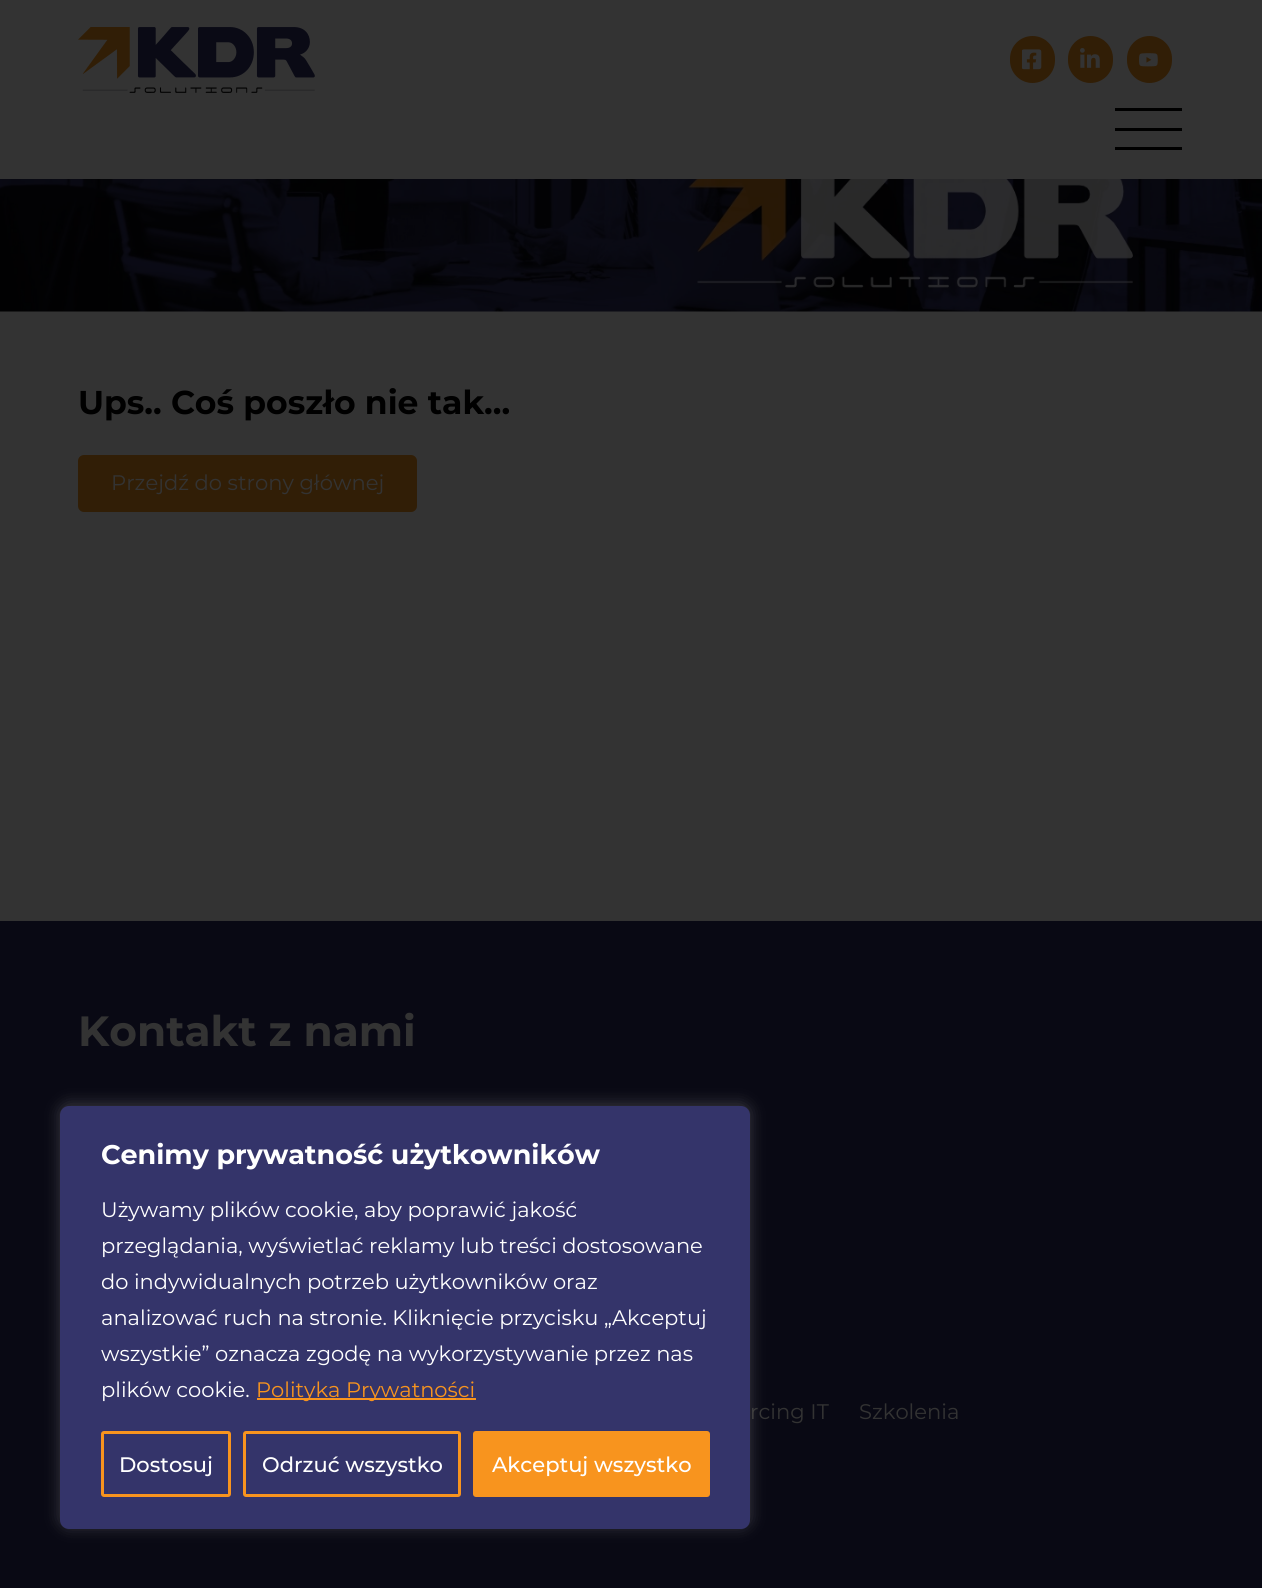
#include <cairo.h>
#include <math.h>
#include <stddef.h>


static void round_rect(cairo_t *cr, double x, double y, double w, double h, double r) {
    cairo_new_sub_path(cr);
    cairo_arc(cr, x + w - r, y + h - r, r, 0, M_PI / 2);
    cairo_arc(cr, x + r, y + h - r, r, M_PI / 2, M_PI);
    cairo_arc(cr, x + r, y + r, r, M_PI, 1.5 * M_PI);
    cairo_arc(cr, x + w - r, y + r, r, 1.5 * M_PI, 2 * M_PI);
    cairo_close_path(cr);
}

static void shadow(cairo_t *cr, double x, double y, double w, double h, double r, double blur, double alpha) {
    cairo_push_group_with_content(cr, CAIRO_CONTENT_ALPHA);
    cairo_set_operator(cr, CAIRO_OPERATOR_SOURCE);
    for (int i = 15; i >= -15 && fmin(w, h) + blur * i / 3 > 0; i -= 2) {
        double e = blur * i / 6;
        cairo_set_source_rgba(cr, 0, 0, 0, alpha * erfc((i - 1) / 8.5) / 2);
        round_rect(cr, x - e, y - e, w + 2 * e, h + 2 * e, fmax(0, fmin(r + e + blur * .6, fmin(w, h) / 2 + e)));
        cairo_fill(cr);
    }
    cairo_pattern_t *soft = cairo_pop_group(cr);
    cairo_mask(cr, soft);
    cairo_pattern_destroy(soft);
}

static void picture(cairo_t *cr, const char *path, double x, double y, double w, double h) {
    cairo_surface_t *image = cairo_image_surface_create_from_png(path);
    cairo_save(cr);
    cairo_set_source_surface(cr, image, x, y);
    cairo_rectangle(cr, x, y, w, h);
    cairo_fill(cr);
    cairo_restore(cr);
    cairo_surface_destroy(image);
}

int main(void) {
    cairo_surface_t *surface = cairo_image_surface_create(CAIRO_FORMAT_RGB24, 1262, 1588);
    cairo_t *cr = cairo_create(surface);
    cairo_font_options_t *options = cairo_font_options_create();
    cairo_font_options_set_hint_metrics(options, CAIRO_HINT_METRICS_OFF);
    cairo_font_options_set_hint_style(options, CAIRO_HINT_STYLE_NONE);
    cairo_set_font_options(cr, options);
    cairo_set_miter_limit(cr, 4);
    cairo_set_source_rgb(cr, 0.2, 0.2, 0.2);
    cairo_paint(cr);
    picture(cr, "img1.png", 78, 27, 237, 66);
    cairo_set_source_rgb(cr, 0.192, 0.118, 0.024);
    round_rect(cr, 1010, 36, 45, 47, 22.5);
    cairo_fill(cr);
    picture(cr, "img2.png", 1022, 49, 20, 21);
    round_rect(cr, 1068, 36, 45, 47, 22.5);
    cairo_fill(cr);
    picture(cr, "img3.png", 1080, 48, 20, 20);
    round_rect(cr, 1127, 36, 45, 47, 22.5);
    cairo_fill(cr);
    picture(cr, "img4.png", 1139, 53, 19, 14);
    cairo_set_source_rgb(cr, 0, 0, 0);
    cairo_rectangle(cr, 1115, 108, 67, 3);
    cairo_fill(cr);
    cairo_rectangle(cr, 1115, 128, 67, 3);
    cairo_fill(cr);
    cairo_rectangle(cr, 1115, 147, 67, 3);
    cairo_fill(cr);
    picture(cr, "img5.png", 0, 179, 1262, 133);
    cairo_select_font_face(cr, "Montserrat", CAIRO_FONT_SLANT_NORMAL, CAIRO_FONT_WEIGHT_BOLD);
    cairo_set_font_size(cr, 33);
    cairo_move_to(cr, 78, 414);
    cairo_show_text(cr, "Ups.. Coś poszło nie tak...");
    cairo_set_source_rgb(cr, 0.192, 0.118, 0.024);
    round_rect(cr, 78, 455, 339, 57, 6);
    cairo_fill(cr);
    cairo_select_font_face(cr, "Montserrat", CAIRO_FONT_SLANT_NORMAL, CAIRO_FONT_WEIGHT_NORMAL);
    cairo_set_font_size(cr, 21.1);
    cairo_set_source_rgb(cr, 0.2, 0.2, 0.2);
    cairo_move_to(cr, 111, 490);
    cairo_show_text(cr, "Przejdź do strony głównej");
    cairo_set_source_rgb(cr, 0.039, 0.039, 0.082);
    cairo_rectangle(cr, 0, 921, 1262, 667);
    cairo_fill(cr);
    cairo_select_font_face(cr, "Montserrat", CAIRO_FONT_SLANT_NORMAL, CAIRO_FONT_WEIGHT_BOLD);
    cairo_set_font_size(cr, 42.25);
    cairo_set_source_rgb(cr, 0.2, 0.2, 0.2);
    cairo_move_to(cr, 78, 1046);
    cairo_show_text(cr, "Kontakt z nami");
    cairo_select_font_face(cr, "Montserrat", CAIRO_FONT_SLANT_NORMAL, CAIRO_FONT_WEIGHT_NORMAL);
    cairo_set_font_size(cr, 21.1);
    cairo_move_to(cr, 750, 1419);
    cairo_show_text(cr, "rcing IT");
    cairo_move_to(cr, 859, 1419);
    cairo_show_text(cr, "Szkolenia");
    cairo_set_source_rgb(cr, 0.675, 0.671, 0.671);
    shadow(cr, 60, 1104, 690, 423, 9, 7.5, 0.3);
    cairo_set_source_rgb(cr, 0.204, 0.204, 0.416);
    round_rect(cr, 61, 1107, 688, 421, 8);
    cairo_fill_preserve(cr);
    cairo_stroke(cr);
    cairo_select_font_face(cr, "Montserrat", CAIRO_FONT_SLANT_NORMAL, CAIRO_FONT_WEIGHT_BOLD);
    cairo_set_font_size(cr, 27);
    cairo_set_source_rgb(cr, 1, 1, 1);
    cairo_move_to(cr, 101, 1164);
    cairo_show_text(cr, "Cenimy prywatność użytkowników");
    cairo_select_font_face(cr, "Montserrat", CAIRO_FONT_SLANT_NORMAL, CAIRO_FONT_WEIGHT_NORMAL);
    cairo_set_font_size(cr, 21);
    cairo_move_to(cr, 101, 1217);
    cairo_show_text(cr, "Używamy plików cookie, aby poprawić jakość");
    cairo_move_to(cr, 101, 1253);
    cairo_show_text(cr, "przeglądania, wyświetlać reklamy lub treści dostosowane");
    cairo_move_to(cr, 101, 1289);
    cairo_show_text(cr, "do indywidualnych potrzeb użytkowników oraz");
    cairo_move_to(cr, 101, 1325);
    cairo_show_text(cr, "analizować ruch na stronie. Kliknięcie przycisku „Akceptuj");
    cairo_move_to(cr, 101, 1361);
    cairo_show_text(cr, "wszystkie” oznacza zgodę na wykorzystywanie przez nas");
    cairo_move_to(cr, 101, 1397);
    cairo_show_text(cr, "plików cookie.");
    cairo_set_source_rgb(cr, 0.969, 0.58, 0.118);
    cairo_rectangle(cr, 257, 1398, 219, 2);
    cairo_fill(cr);
    cairo_move_to(cr, 256, 1397);
    cairo_show_text(cr, "Polityka Prywatności");
    round_rect(cr, 102.5, 1432.5, 127, 63, 1.5);
    cairo_set_line_width(cr, 3);
    cairo_stroke(cr);
    cairo_select_font_face(cr, "Montserrat Medium", CAIRO_FONT_SLANT_NORMAL, CAIRO_FONT_WEIGHT_NORMAL);
    cairo_set_source_rgb(cr, 1, 1, 1);
    cairo_move_to(cr, 119, 1472);
    cairo_show_text(cr, "Dostosuj");
    round_rect(cr, 244.5, 1432.5, 215, 63, 1.5);
    cairo_set_source_rgb(cr, 0.969, 0.58, 0.118);
    cairo_stroke(cr);
    cairo_set_source_rgb(cr, 1, 1, 1);
    cairo_move_to(cr, 262, 1472);
    cairo_show_text(cr, "Odrzuć wszystko");
    cairo_set_source_rgb(cr, 0.969, 0.58, 0.118);
    round_rect(cr, 474.5, 1432.5, 234, 63, 1.5);
    cairo_fill_preserve(cr);
    cairo_stroke(cr);
    cairo_set_source_rgb(cr, 1, 1, 1);
    cairo_move_to(cr, 492, 1472);
    cairo_show_text(cr, "Akceptuj wszystko");
    cairo_surface_write_to_png(surface, "page.png");
    cairo_font_options_destroy(options);
    cairo_destroy(cr);
    cairo_surface_destroy(surface);
    return 0;
}
